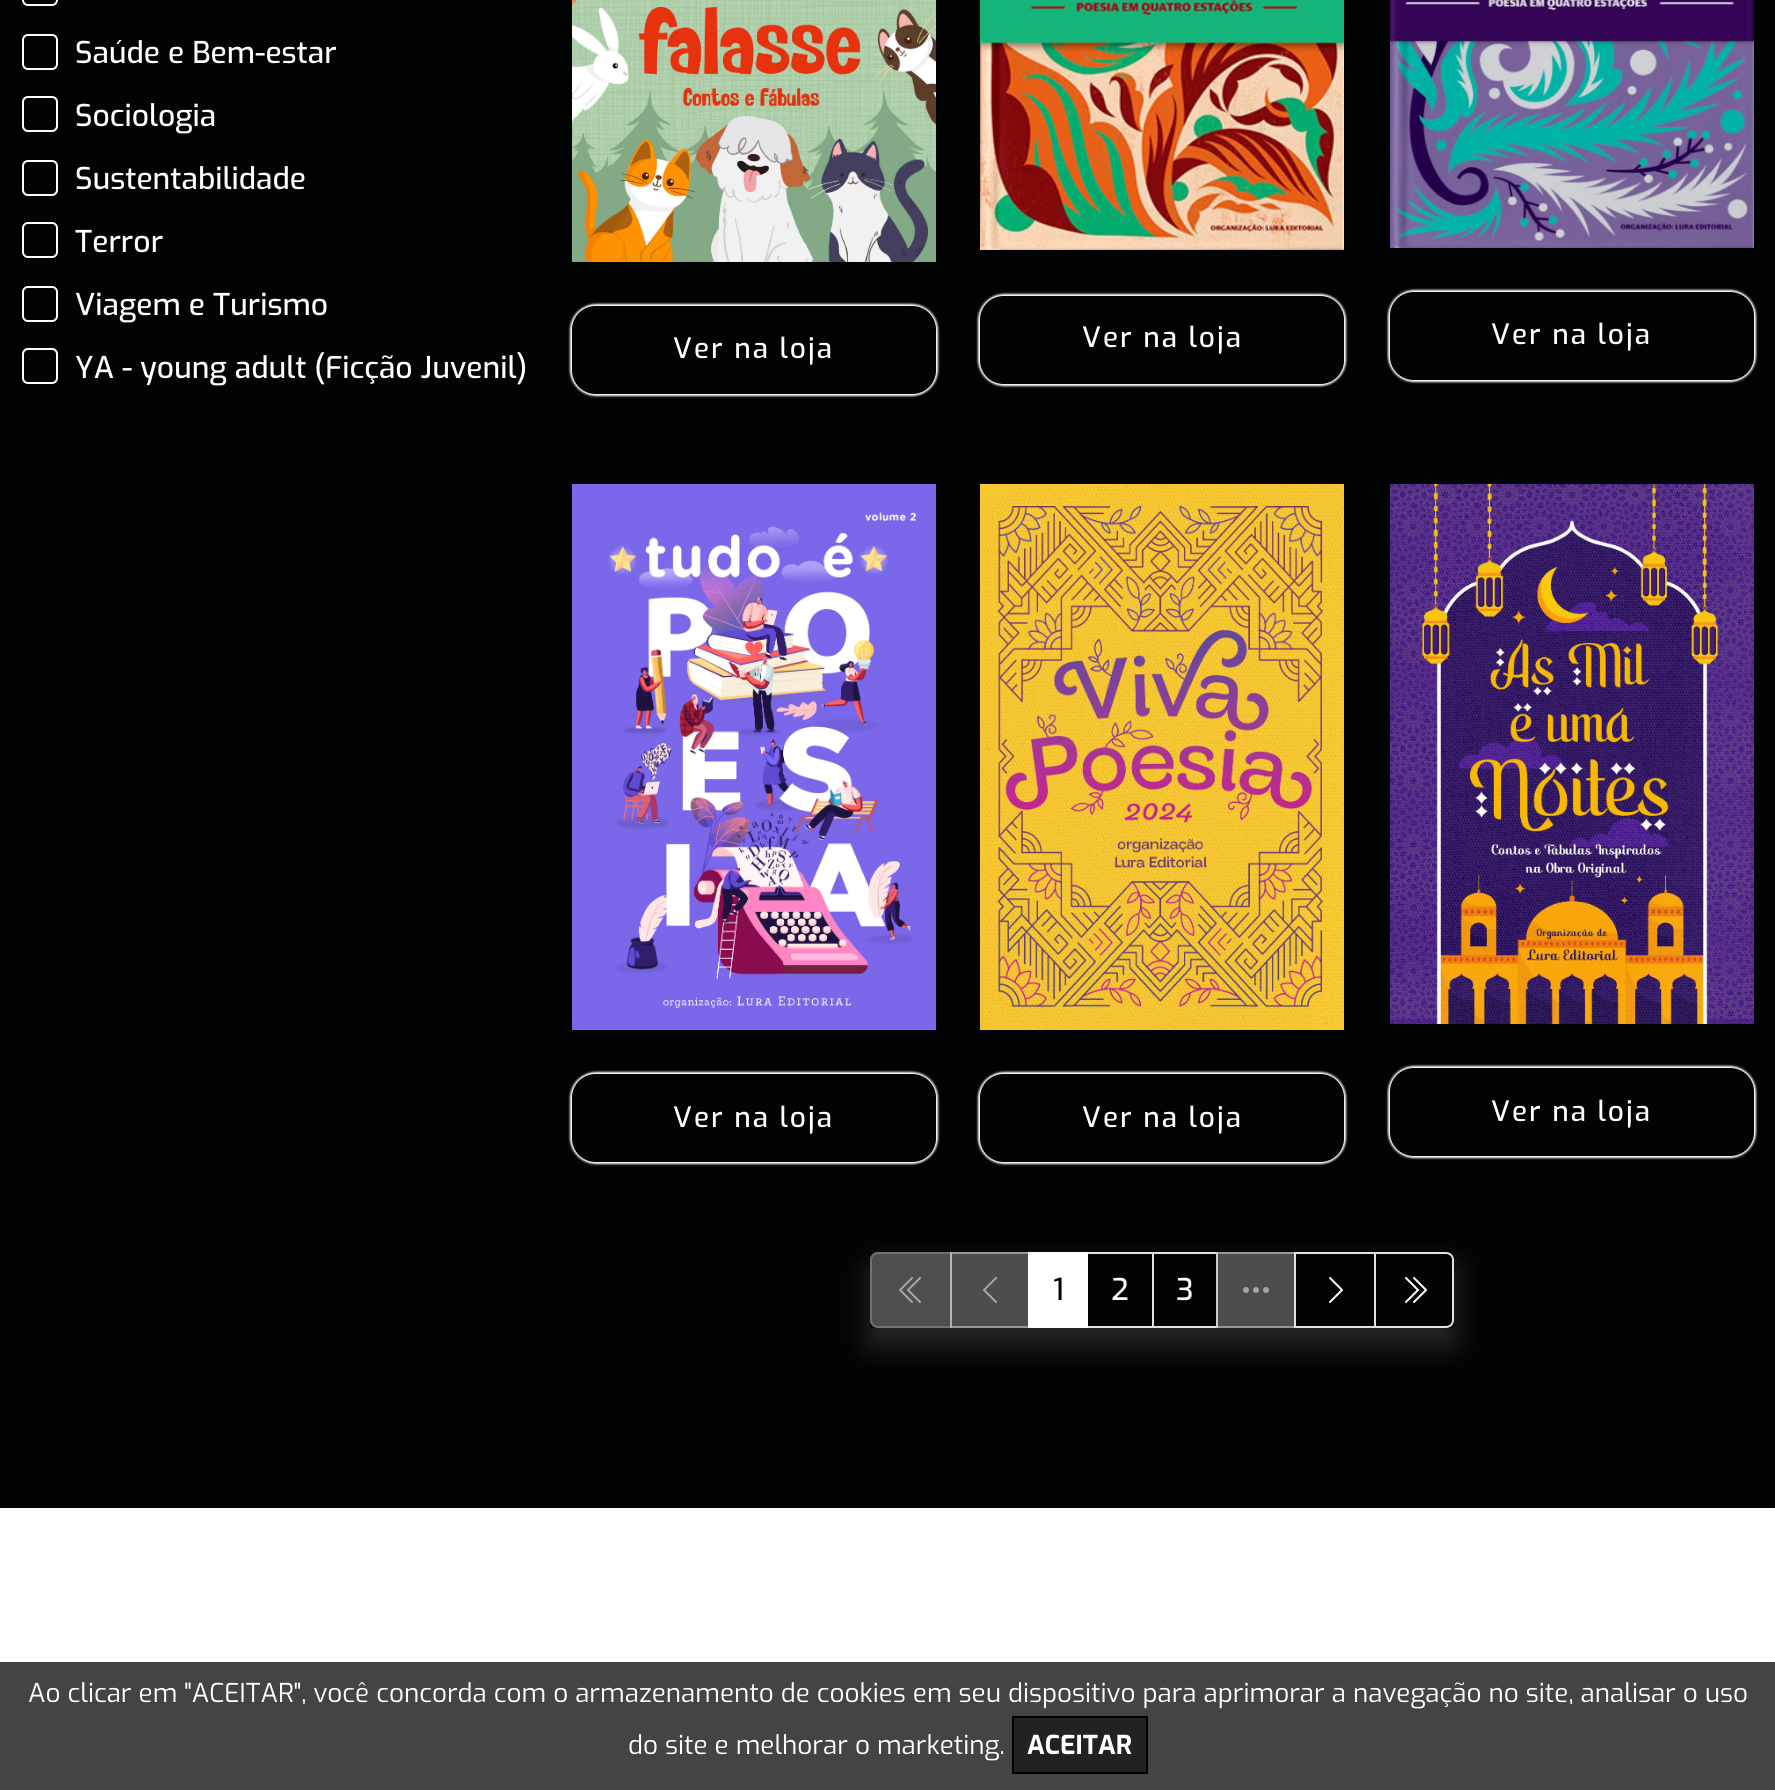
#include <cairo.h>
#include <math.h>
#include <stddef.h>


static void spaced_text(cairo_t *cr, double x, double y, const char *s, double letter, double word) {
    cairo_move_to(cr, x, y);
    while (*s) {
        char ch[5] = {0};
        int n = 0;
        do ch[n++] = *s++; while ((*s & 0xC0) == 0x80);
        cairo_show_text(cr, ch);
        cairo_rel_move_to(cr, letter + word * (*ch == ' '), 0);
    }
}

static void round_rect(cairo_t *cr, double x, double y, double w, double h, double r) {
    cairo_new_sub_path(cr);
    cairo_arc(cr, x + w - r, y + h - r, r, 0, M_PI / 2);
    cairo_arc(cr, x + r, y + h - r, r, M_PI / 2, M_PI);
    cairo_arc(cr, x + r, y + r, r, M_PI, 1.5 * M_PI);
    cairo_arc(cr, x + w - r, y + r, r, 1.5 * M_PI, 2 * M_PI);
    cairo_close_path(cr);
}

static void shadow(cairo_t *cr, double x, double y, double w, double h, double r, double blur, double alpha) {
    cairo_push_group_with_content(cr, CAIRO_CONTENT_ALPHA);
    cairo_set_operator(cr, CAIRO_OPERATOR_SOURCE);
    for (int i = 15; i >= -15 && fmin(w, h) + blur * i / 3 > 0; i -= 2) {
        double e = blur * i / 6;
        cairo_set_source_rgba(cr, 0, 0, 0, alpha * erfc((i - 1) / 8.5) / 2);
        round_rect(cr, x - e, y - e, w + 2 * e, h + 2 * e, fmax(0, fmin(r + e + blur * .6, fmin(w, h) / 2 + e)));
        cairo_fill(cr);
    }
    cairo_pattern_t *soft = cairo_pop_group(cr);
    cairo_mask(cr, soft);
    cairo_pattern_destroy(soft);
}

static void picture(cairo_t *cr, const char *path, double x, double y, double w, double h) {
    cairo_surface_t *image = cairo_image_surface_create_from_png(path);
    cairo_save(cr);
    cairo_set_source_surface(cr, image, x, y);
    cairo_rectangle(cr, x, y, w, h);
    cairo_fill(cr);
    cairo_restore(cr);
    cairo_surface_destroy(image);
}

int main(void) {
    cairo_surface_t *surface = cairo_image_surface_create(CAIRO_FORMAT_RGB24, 1775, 1790);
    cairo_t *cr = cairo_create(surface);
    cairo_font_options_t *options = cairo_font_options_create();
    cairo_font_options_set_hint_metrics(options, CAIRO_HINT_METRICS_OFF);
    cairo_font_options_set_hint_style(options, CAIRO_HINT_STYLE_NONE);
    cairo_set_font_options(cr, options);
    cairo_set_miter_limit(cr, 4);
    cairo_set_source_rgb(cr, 1, 1, 1);
    cairo_paint(cr);
    cairo_set_source_rgb(cr, 0.008, 0.012, 0.012);
    cairo_rectangle(cr, 0, 0, 1775, 1508);
    cairo_fill(cr);
    round_rect(cr, 23, -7, 34, 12, 5);
    cairo_set_source_rgb(cr, 1, 1, 1);
    cairo_stroke(cr);
    round_rect(cr, 23, 35, 34, 34, 5);
    cairo_stroke(cr);
    cairo_select_font_face(cr, "Exo Medium", CAIRO_FONT_SLANT_NORMAL, CAIRO_FONT_WEIGHT_NORMAL);
    cairo_set_font_size(cr, 30);
    cairo_move_to(cr, 75, 63);
    cairo_show_text(cr, "Saúde e Bem-estar");
    round_rect(cr, 23, 97, 34, 34, 5);
    cairo_stroke(cr);
    cairo_move_to(cr, 75, 126);
    cairo_show_text(cr, "Sociologia");
    round_rect(cr, 23, 161, 34, 34, 5);
    cairo_stroke(cr);
    cairo_move_to(cr, 75, 189);
    cairo_show_text(cr, "Sustentabilidade");
    round_rect(cr, 23, 223, 34, 34, 5);
    cairo_stroke(cr);
    cairo_move_to(cr, 75, 252);
    cairo_show_text(cr, "Terror");
    round_rect(cr, 23, 287, 34, 34, 5);
    cairo_stroke(cr);
    cairo_move_to(cr, 75, 315);
    cairo_show_text(cr, "Viagem e Turismo");
    round_rect(cr, 23, 349, 34, 34, 5);
    cairo_stroke(cr);
    cairo_move_to(cr, 75, 378);
    cairo_show_text(cr, "YA - young adult (Ficção Juvenil)");
    picture(cr, "img1.png", 572, 0, 364, 262);
    cairo_save(cr);
    cairo_set_fill_rule(cr, CAIRO_FILL_RULE_EVEN_ODD);
    cairo_new_path(cr);
    cairo_move_to(cr, 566, 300);
    cairo_line_to(cr, 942, 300);
    cairo_line_to(cr, 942, 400);
    cairo_line_to(cr, 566, 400);
    cairo_close_path(cr);
    cairo_move_to(cr, 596, 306);
    cairo_line_to(cr, 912, 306);
    cairo_curve_to(cr, 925.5, 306, 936, 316.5, 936, 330);
    cairo_line_to(cr, 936, 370);
    cairo_curve_to(cr, 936, 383.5, 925.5, 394, 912, 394);
    cairo_line_to(cr, 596, 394);
    cairo_curve_to(cr, 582.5, 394, 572, 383.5, 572, 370);
    cairo_line_to(cr, 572, 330);
    cairo_curve_to(cr, 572, 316.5, 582.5, 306, 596, 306);
    cairo_close_path(cr);
    cairo_clip(cr);
    cairo_set_source_rgb(cr, 1, 1, 1);
    shadow(cr, 570, 304, 368, 92, 26, 1, 1);
    cairo_restore(cr);
    cairo_set_font_size(cr, 28);
    spaced_text(cr, 673, 358, "Ver na loja", 2, 0);
    picture(cr, "img2.png", 980, 0, 364, 250);
    cairo_save(cr);
    cairo_set_fill_rule(cr, CAIRO_FILL_RULE_EVEN_ODD);
    cairo_new_path(cr);
    cairo_move_to(cr, 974, 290);
    cairo_line_to(cr, 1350, 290);
    cairo_line_to(cr, 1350, 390);
    cairo_line_to(cr, 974, 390);
    cairo_close_path(cr);
    cairo_move_to(cr, 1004, 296);
    cairo_line_to(cr, 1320, 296);
    cairo_curve_to(cr, 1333.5, 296, 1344, 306.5, 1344, 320);
    cairo_line_to(cr, 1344, 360);
    cairo_curve_to(cr, 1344, 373.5, 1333.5, 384, 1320, 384);
    cairo_line_to(cr, 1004, 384);
    cairo_curve_to(cr, 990.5, 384, 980, 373.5, 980, 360);
    cairo_line_to(cr, 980, 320);
    cairo_curve_to(cr, 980, 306.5, 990.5, 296, 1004, 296);
    cairo_close_path(cr);
    cairo_clip(cr);
    cairo_set_source_rgb(cr, 1, 1, 1);
    shadow(cr, 978, 294, 368, 92, 26, 1, 1);
    cairo_restore(cr);
    spaced_text(cr, 1082, 347, "Ver na loja", 2, 0);
    picture(cr, "img3.png", 1390, 0, 364, 248);
    cairo_save(cr);
    cairo_set_fill_rule(cr, CAIRO_FILL_RULE_EVEN_ODD);
    cairo_new_path(cr);
    cairo_move_to(cr, 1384, 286);
    cairo_line_to(cr, 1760, 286);
    cairo_line_to(cr, 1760, 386);
    cairo_line_to(cr, 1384, 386);
    cairo_close_path(cr);
    cairo_move_to(cr, 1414, 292);
    cairo_line_to(cr, 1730, 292);
    cairo_curve_to(cr, 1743.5, 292, 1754, 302.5, 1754, 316);
    cairo_line_to(cr, 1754, 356);
    cairo_curve_to(cr, 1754, 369.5, 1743.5, 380, 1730, 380);
    cairo_line_to(cr, 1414, 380);
    cairo_curve_to(cr, 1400.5, 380, 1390, 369.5, 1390, 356);
    cairo_line_to(cr, 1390, 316);
    cairo_curve_to(cr, 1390, 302.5, 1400.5, 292, 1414, 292);
    cairo_close_path(cr);
    cairo_clip(cr);
    cairo_set_source_rgb(cr, 1, 1, 1);
    shadow(cr, 1388, 290, 368, 92, 26, 1, 1);
    cairo_restore(cr);
    spaced_text(cr, 1491, 344, "Ver na loja", 2, 0);
    picture(cr, "img4.png", 572, 484, 364, 546);
    cairo_save(cr);
    cairo_set_fill_rule(cr, CAIRO_FILL_RULE_EVEN_ODD);
    cairo_new_path(cr);
    cairo_move_to(cr, 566, 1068);
    cairo_line_to(cr, 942, 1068);
    cairo_line_to(cr, 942, 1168);
    cairo_line_to(cr, 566, 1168);
    cairo_close_path(cr);
    cairo_move_to(cr, 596, 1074);
    cairo_line_to(cr, 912, 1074);
    cairo_curve_to(cr, 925.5, 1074, 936, 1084.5, 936, 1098);
    cairo_line_to(cr, 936, 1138);
    cairo_curve_to(cr, 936, 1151.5, 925.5, 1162, 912, 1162);
    cairo_line_to(cr, 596, 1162);
    cairo_curve_to(cr, 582.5, 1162, 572, 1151.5, 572, 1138);
    cairo_line_to(cr, 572, 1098);
    cairo_curve_to(cr, 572, 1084.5, 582.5, 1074, 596, 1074);
    cairo_close_path(cr);
    cairo_clip(cr);
    cairo_set_source_rgb(cr, 1, 1, 1);
    shadow(cr, 570, 1072, 368, 92, 26, 1, 1);
    cairo_restore(cr);
    spaced_text(cr, 673, 1127, "Ver na loja", 2, 0);
    picture(cr, "img5.png", 980, 484, 364, 546);
    cairo_save(cr);
    cairo_set_fill_rule(cr, CAIRO_FILL_RULE_EVEN_ODD);
    cairo_new_path(cr);
    cairo_move_to(cr, 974, 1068);
    cairo_line_to(cr, 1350, 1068);
    cairo_line_to(cr, 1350, 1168);
    cairo_line_to(cr, 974, 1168);
    cairo_close_path(cr);
    cairo_move_to(cr, 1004, 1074);
    cairo_line_to(cr, 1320, 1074);
    cairo_curve_to(cr, 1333.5, 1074, 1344, 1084.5, 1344, 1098);
    cairo_line_to(cr, 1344, 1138);
    cairo_curve_to(cr, 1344, 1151.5, 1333.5, 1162, 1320, 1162);
    cairo_line_to(cr, 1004, 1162);
    cairo_curve_to(cr, 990.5, 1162, 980, 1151.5, 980, 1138);
    cairo_line_to(cr, 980, 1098);
    cairo_curve_to(cr, 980, 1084.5, 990.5, 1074, 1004, 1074);
    cairo_close_path(cr);
    cairo_clip(cr);
    cairo_set_source_rgb(cr, 1, 1, 1);
    shadow(cr, 978, 1072, 368, 92, 26, 1, 1);
    cairo_restore(cr);
    spaced_text(cr, 1082, 1127, "Ver na loja", 2, 0);
    picture(cr, "img6.png", 1390, 484, 364, 540);
    cairo_save(cr);
    cairo_set_fill_rule(cr, CAIRO_FILL_RULE_EVEN_ODD);
    cairo_new_path(cr);
    cairo_move_to(cr, 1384, 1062);
    cairo_line_to(cr, 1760, 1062);
    cairo_line_to(cr, 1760, 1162);
    cairo_line_to(cr, 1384, 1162);
    cairo_close_path(cr);
    cairo_move_to(cr, 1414, 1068);
    cairo_line_to(cr, 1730, 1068);
    cairo_curve_to(cr, 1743.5, 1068, 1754, 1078.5, 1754, 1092);
    cairo_line_to(cr, 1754, 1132);
    cairo_curve_to(cr, 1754, 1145.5, 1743.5, 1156, 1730, 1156);
    cairo_line_to(cr, 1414, 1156);
    cairo_curve_to(cr, 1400.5, 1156, 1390, 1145.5, 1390, 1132);
    cairo_line_to(cr, 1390, 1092);
    cairo_curve_to(cr, 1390, 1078.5, 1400.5, 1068, 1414, 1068);
    cairo_close_path(cr);
    cairo_clip(cr);
    cairo_set_source_rgb(cr, 1, 1, 1);
    shadow(cr, 1388, 1066, 368, 92, 26, 1, 1);
    cairo_restore(cr);
    spaced_text(cr, 1491, 1121, "Ver na loja", 2, 0);
    cairo_save(cr);
    cairo_set_fill_rule(cr, CAIRO_FILL_RULE_EVEN_ODD);
    cairo_new_path(cr);
    cairo_move_to(cr, 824, 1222);
    cairo_line_to(cr, 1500, 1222);
    cairo_line_to(cr, 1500, 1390);
    cairo_line_to(cr, 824, 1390);
    cairo_close_path(cr);
    cairo_move_to(cr, 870, 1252);
    cairo_line_to(cr, 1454, 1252);
    cairo_line_to(cr, 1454, 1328);
    cairo_line_to(cr, 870, 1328);
    cairo_close_path(cr);
    cairo_clip(cr);
    cairo_set_source_rgb(cr, 1, 1, 1);
    shadow(cr, 870, 1268, 584, 76, 0, 15, 0.15);
    cairo_restore(cr);
    cairo_set_source_rgb(cr, 0.306, 0.306, 0.306);
    cairo_new_path(cr);
    cairo_move_to(cr, 878, 1253);
    cairo_line_to(cr, 951, 1253);
    cairo_line_to(cr, 951, 1327);
    cairo_line_to(cr, 878, 1327);
    cairo_curve_to(cr, 874, 1327, 871, 1324, 871, 1320);
    cairo_line_to(cr, 871, 1260);
    cairo_curve_to(cr, 871, 1256, 874, 1253, 878, 1253);
    cairo_close_path(cr);
    cairo_fill_preserve(cr);
    cairo_set_source_rgb(cr, 0.439, 0.451, 0.459);
    cairo_stroke(cr);
    picture(cr, "img7.png", 899, 1277, 22, 26);
    cairo_set_source_rgba(cr, 0.6, 0.6, 0.6, 0.5);
    cairo_rectangle(cr, 950, 1252, 78, 76);
    cairo_fill(cr);
    cairo_rectangle(cr, 951, 1253, 78, 74);
    cairo_set_source_rgba(cr, 0.871, 0.886, 0.902, 0.5);
    cairo_stroke(cr);
    picture(cr, "img8.png", 983, 1277, 14, 26);
    cairo_rectangle(cr, 1087, 1253, 66, 74);
    cairo_set_source_rgb(cr, 0.871, 0.886, 0.902);
    cairo_stroke(cr);
    cairo_set_source_rgb(cr, 1, 1, 1);
    cairo_rectangle(cr, 1028, 1252, 60, 76);
    cairo_fill(cr);
    cairo_set_font_size(cr, 30);
    cairo_set_source_rgb(cr, 0.008, 0.012, 0.012);
    cairo_move_to(cr, 1053, 1300);
    cairo_show_text(cr, "1");
    cairo_set_source_rgb(cr, 1, 1, 1);
    cairo_move_to(cr, 1111, 1300);
    cairo_show_text(cr, "2");
    cairo_rectangle(cr, 1153, 1253, 64, 74);
    cairo_set_source_rgb(cr, 0.871, 0.886, 0.902);
    cairo_stroke(cr);
    cairo_set_source_rgb(cr, 1, 1, 1);
    cairo_move_to(cr, 1176, 1300);
    cairo_show_text(cr, "3");
    cairo_set_source_rgba(cr, 0.6, 0.6, 0.6, 0.5);
    cairo_rectangle(cr, 1216, 1252, 78, 76);
    cairo_fill(cr);
    cairo_rectangle(cr, 1217, 1253, 78, 74);
    cairo_set_source_rgba(cr, 0.871, 0.886, 0.902, 0.5);
    cairo_stroke(cr);
    picture(cr, "img9.png", 1243, 1287, 26, 6);
    cairo_rectangle(cr, 1295, 1253, 80, 74);
    cairo_set_source_rgb(cr, 0.871, 0.886, 0.902);
    cairo_stroke(cr);
    picture(cr, "img10.png", 1329, 1277, 14, 26);
    cairo_new_path(cr);
    cairo_move_to(cr, 1375, 1253);
    cairo_line_to(cr, 1446, 1253);
    cairo_curve_to(cr, 1450, 1253, 1453, 1256, 1453, 1260);
    cairo_line_to(cr, 1453, 1320);
    cairo_curve_to(cr, 1453, 1324, 1450, 1327, 1446, 1327);
    cairo_line_to(cr, 1375, 1327);
    cairo_close_path(cr);
    cairo_stroke(cr);
    picture(cr, "img11.png", 1405, 1277, 22, 26);
    cairo_set_source_rgb(cr, 0.267, 0.267, 0.267);
    cairo_rectangle(cr, 0, 1662, 1775, 128);
    cairo_fill(cr);
    cairo_select_font_face(cr, "Exo", CAIRO_FONT_SLANT_NORMAL, CAIRO_FONT_WEIGHT_NORMAL);
    cairo_set_font_size(cr, 26);
    cairo_set_source_rgb(cr, 1, 1, 1);
    cairo_move_to(cr, 28, 1702);
    cairo_show_text(cr, "Ao clicar em \"ACEITAR\", você concorda com o armazenamento de cookies em seu dispositivo para aprimorar a navegação no site, analisar o uso");
    cairo_move_to(cr, 628, 1754);
    cairo_show_text(cr, "do site e melhorar o marketing.");
    cairo_set_source_rgb(cr, 0.133, 0.133, 0.133);
    cairo_rectangle(cr, 1013, 1717, 134, 56);
    cairo_fill_preserve(cr);
    cairo_set_source_rgb(cr, 0, 0, 0);
    cairo_stroke(cr);
    cairo_select_font_face(cr, "Exo", CAIRO_FONT_SLANT_NORMAL, CAIRO_FONT_WEIGHT_BOLD);
    cairo_set_source_rgb(cr, 1, 1, 1);
    cairo_move_to(cr, 1027, 1754);
    cairo_show_text(cr, "ACEITAR");
    cairo_surface_write_to_png(surface, "page.png");
    cairo_font_options_destroy(options);
    cairo_destroy(cr);
    cairo_surface_destroy(surface);
    return 0;
}
